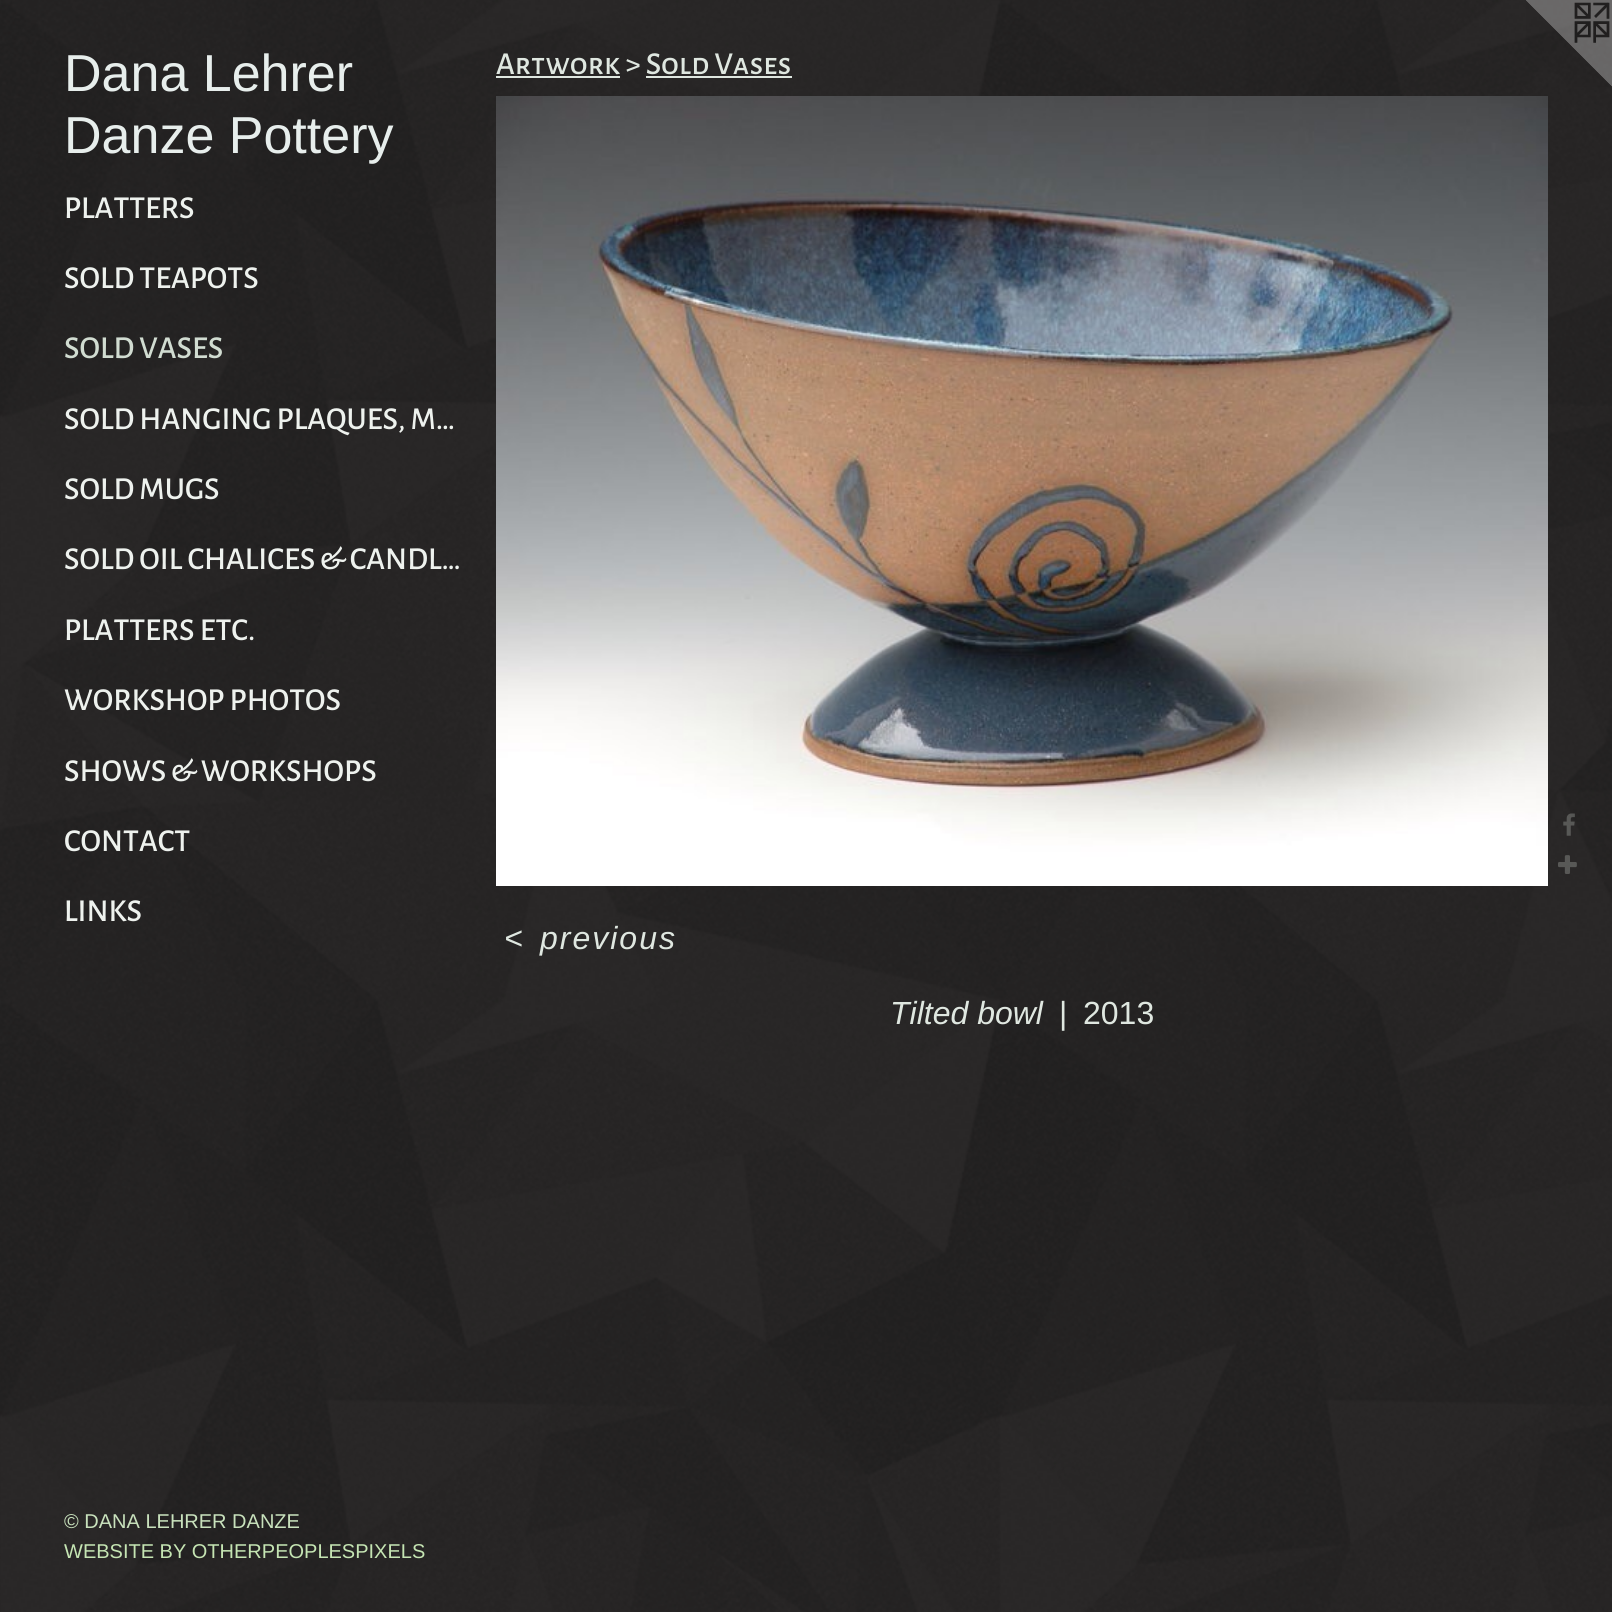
#include <cairo.h>
#include <math.h>
#include <stddef.h>


static void spaced_text(cairo_t *cr, double x, double y, const char *s, double letter, double word) {
    cairo_move_to(cr, x, y);
    while (*s) {
        char ch[5] = {0};
        int n = 0;
        do ch[n++] = *s++; while ((*s & 0xC0) == 0x80);
        cairo_show_text(cr, ch);
        cairo_rel_move_to(cr, letter + word * (*ch == ' '), 0);
    }
}

static void picture(cairo_t *cr, const char *path, double x, double y, double w, double h) {
    cairo_surface_t *image = cairo_image_surface_create_from_png(path);
    cairo_save(cr);
    cairo_set_source_surface(cr, image, x, y);
    cairo_rectangle(cr, x, y, w, h);
    cairo_fill(cr);
    cairo_restore(cr);
    cairo_surface_destroy(image);
}

int main(void) {
    cairo_surface_t *surface = cairo_image_surface_create(CAIRO_FORMAT_RGB24, 1612, 1612);
    cairo_t *cr = cairo_create(surface);
    cairo_font_options_t *options = cairo_font_options_create();
    cairo_font_options_set_hint_metrics(options, CAIRO_HINT_METRICS_OFF);
    cairo_font_options_set_hint_style(options, CAIRO_HINT_STYLE_NONE);
    cairo_set_font_options(cr, options);
    cairo_set_miter_limit(cr, 4);
    cairo_set_source_rgb(cr, 1, 1, 1);
    cairo_paint(cr);
    picture(cr, "img1.png", 0, 0, 1612, 1612);
    cairo_select_font_face(cr, "Arimo", CAIRO_FONT_SLANT_NORMAL, CAIRO_FONT_WEIGHT_NORMAL);
    cairo_set_font_size(cr, 52);
    cairo_set_source_rgb(cr, 0.906, 0.933, 0.922);
    cairo_move_to(cr, 64, 91);
    cairo_show_text(cr, "Dana Lehrer");
    cairo_move_to(cr, 64, 153);
    cairo_show_text(cr, "Danze Pottery");
    cairo_select_font_face(cr, "Alegreya Sans SC Medium", CAIRO_FONT_SLANT_NORMAL, CAIRO_FONT_WEIGHT_NORMAL);
    cairo_set_font_size(cr, 32);
    cairo_set_source_rgb(cr, 0.933, 0.949, 0.933);
    cairo_move_to(cr, 64, 218);
    cairo_show_text(cr, "PLATTERS");
    cairo_move_to(cr, 64, 288);
    cairo_show_text(cr, "SOLD TEAPOTS");
    cairo_set_source_rgb(cr, 0.82, 0.863, 0.82);
    cairo_move_to(cr, 64, 358);
    cairo_show_text(cr, "SOLD VASES");
    cairo_set_source_rgb(cr, 0.933, 0.949, 0.933);
    cairo_move_to(cr, 64, 429);
    cairo_show_text(cr, "SOLD HANGING PLAQUES, M…");
    cairo_move_to(cr, 64, 499);
    cairo_show_text(cr, "SOLD MUGS");
    cairo_move_to(cr, 64, 569);
    cairo_show_text(cr, "SOLD OIL CHALICES & CANDL…");
    cairo_move_to(cr, 64, 640);
    cairo_show_text(cr, "PLATTERS ETC.");
    cairo_move_to(cr, 64, 710);
    cairo_show_text(cr, "WORKSHOP PHOTOS");
    cairo_move_to(cr, 64, 781);
    cairo_show_text(cr, "SHOWS & WORKSHOPS");
    cairo_move_to(cr, 64, 851);
    cairo_show_text(cr, "CONTACT");
    cairo_move_to(cr, 64, 921);
    cairo_show_text(cr, "LINKS");
    cairo_select_font_face(cr, "Liberation Sans", CAIRO_FONT_SLANT_NORMAL, CAIRO_FONT_WEIGHT_NORMAL);
    cairo_set_font_size(cr, 20);
    cairo_set_source_rgb(cr, 0.784, 0.882, 0.737);
    cairo_move_to(cr, 64, 1528);
    cairo_show_text(cr, "© DANA LEHRER DANZE");
    cairo_set_source_rgb(cr, 0.773, 0.898, 0.702);
    cairo_move_to(cr, 64, 1558);
    cairo_show_text(cr, "WEBSITE BY OTHERPEOPLESPIXELS");
    picture(cr, "img2.png", 1526, 0, 86, 87);
    cairo_select_font_face(cr, "Alegreya Sans SC Medium", CAIRO_FONT_SLANT_NORMAL, CAIRO_FONT_WEIGHT_NORMAL);
    cairo_set_font_size(cr, 32);
    cairo_set_source_rgb(cr, 0.875, 0.906, 0.878);
    cairo_move_to(cr, 496, 74);
    cairo_show_text(cr, "Artwork > Sold Vases");
    cairo_rectangle(cr, 496, 76, 124, 2);
    cairo_fill(cr);
    cairo_rectangle(cr, 646, 76, 146, 2);
    cairo_fill(cr);
    picture(cr, "img3.png", 496, 96, 1052, 790);
    picture(cr, "img4.png", 1563, 813, 12, 23);
    picture(cr, "img5.png", 1558, 855, 19, 19);
    cairo_select_font_face(cr, "Liberation Sans", CAIRO_FONT_SLANT_ITALIC, CAIRO_FONT_WEIGHT_NORMAL);
    spaced_text(cr, 504, 949, "<", 2, 0);
    spaced_text(cr, 540, 949, "previous", 2, 0);
    cairo_move_to(cr, 890, 1024);
    cairo_show_text(cr, "Tilted bowl");
    cairo_select_font_face(cr, "Liberation Sans", CAIRO_FONT_SLANT_NORMAL, CAIRO_FONT_WEIGHT_NORMAL);
    cairo_move_to(cr, 1059, 1024);
    cairo_show_text(cr, "|");
    cairo_move_to(cr, 1083, 1024);
    cairo_show_text(cr, "2013");
    cairo_surface_write_to_png(surface, "page.png");
    cairo_font_options_destroy(options);
    cairo_destroy(cr);
    cairo_surface_destroy(surface);
    return 0;
}
